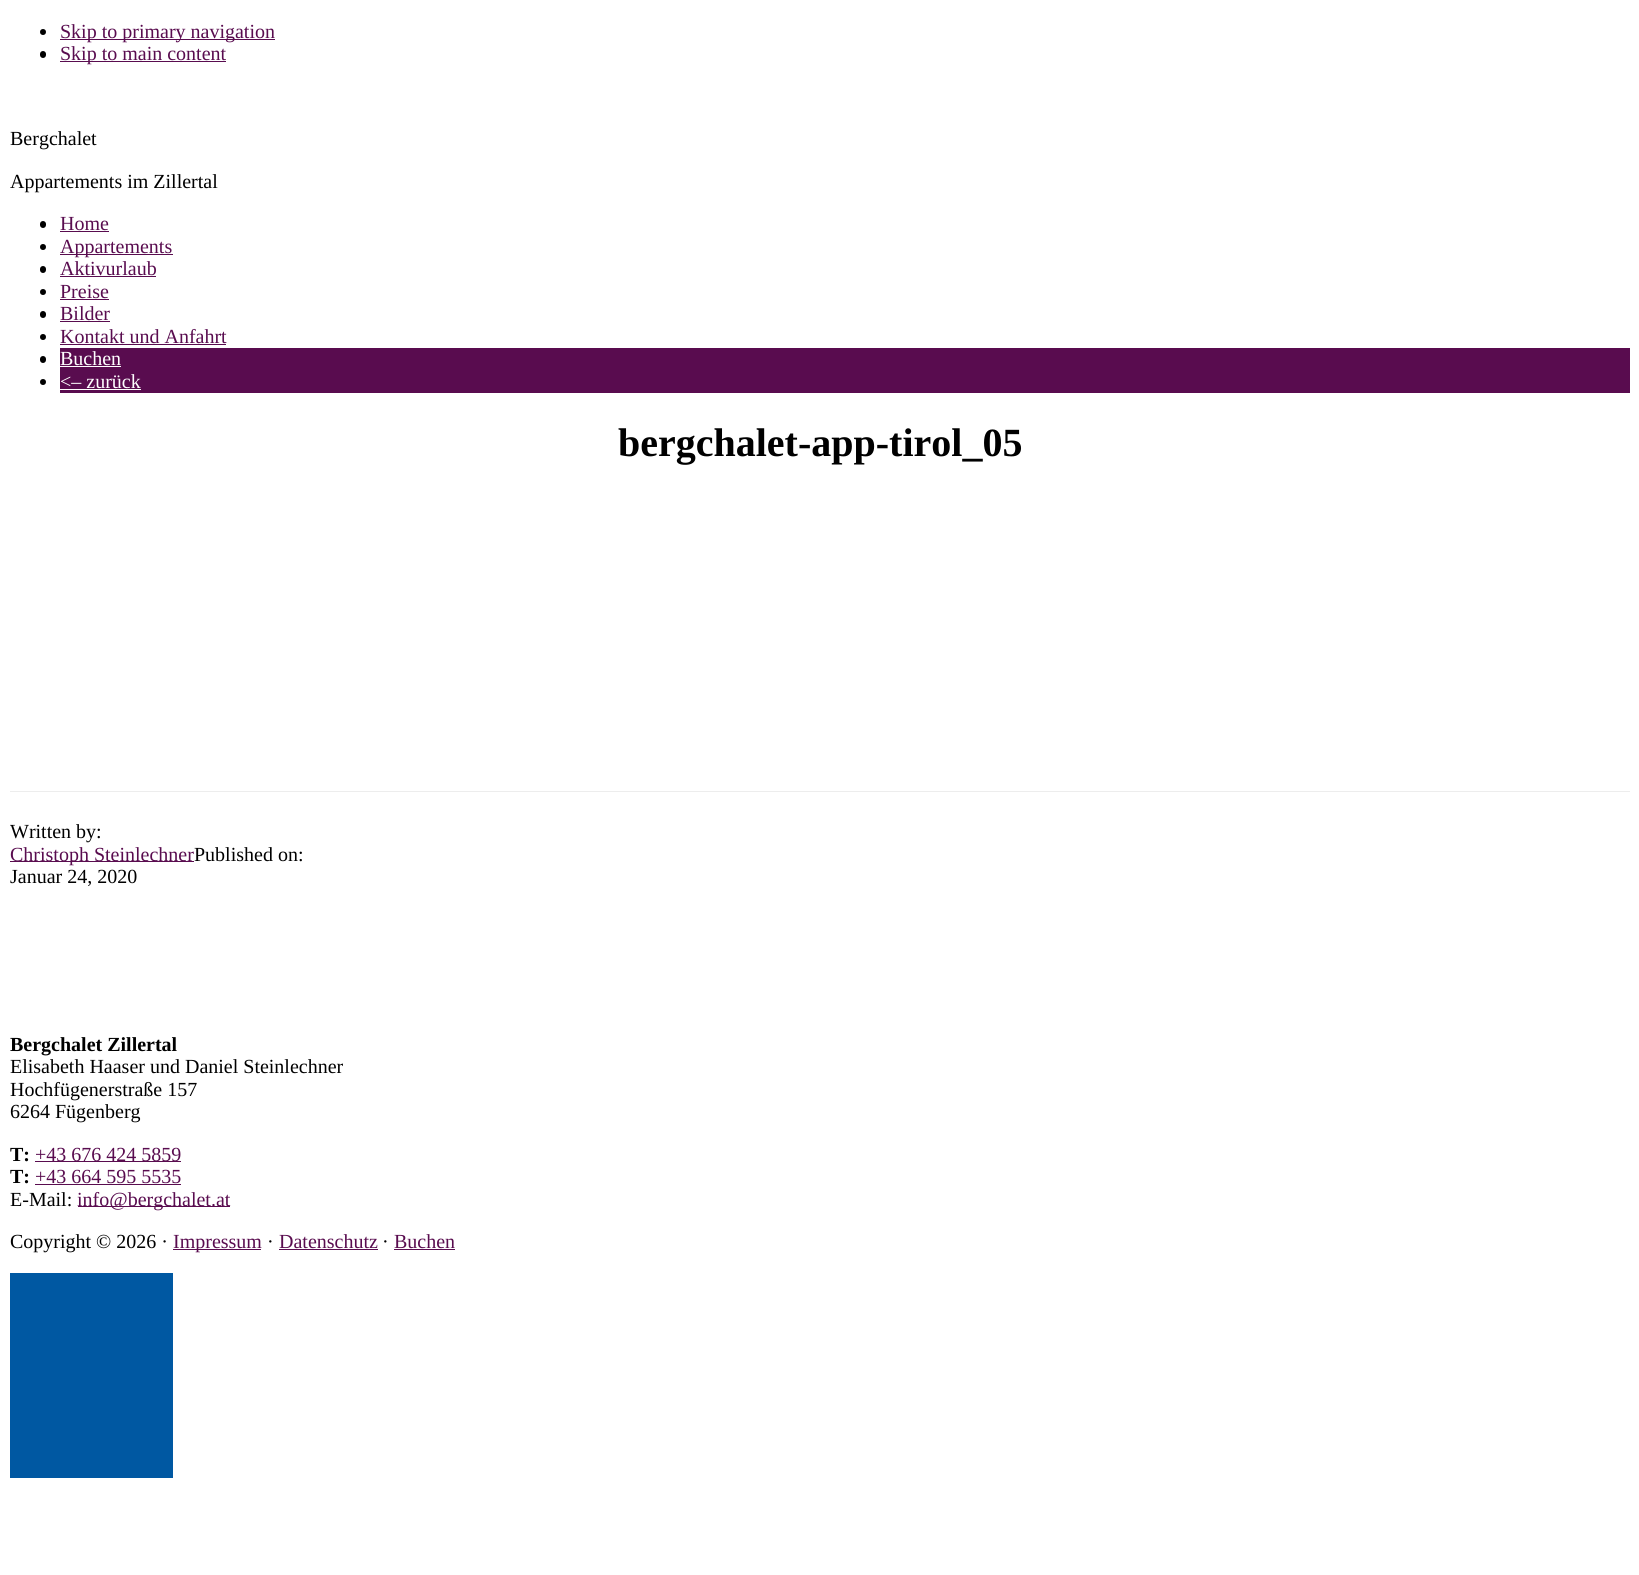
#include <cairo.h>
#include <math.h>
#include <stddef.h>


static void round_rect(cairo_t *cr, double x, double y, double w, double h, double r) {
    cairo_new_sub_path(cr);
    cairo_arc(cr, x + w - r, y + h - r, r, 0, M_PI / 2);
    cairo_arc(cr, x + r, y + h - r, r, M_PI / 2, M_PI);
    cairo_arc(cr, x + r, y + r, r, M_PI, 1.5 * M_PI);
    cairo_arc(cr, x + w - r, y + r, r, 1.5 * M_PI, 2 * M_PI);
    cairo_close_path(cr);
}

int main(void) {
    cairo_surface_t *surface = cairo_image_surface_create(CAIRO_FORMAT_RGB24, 1639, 1575);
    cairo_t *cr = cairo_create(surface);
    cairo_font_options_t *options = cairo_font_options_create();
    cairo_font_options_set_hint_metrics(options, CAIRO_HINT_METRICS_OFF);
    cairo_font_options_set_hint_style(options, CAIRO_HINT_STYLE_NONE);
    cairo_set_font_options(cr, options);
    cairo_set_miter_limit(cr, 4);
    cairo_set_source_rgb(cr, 1, 1, 1);
    cairo_paint(cr);
    cairo_set_source_rgb(cr, 0, 0, 0);
    cairo_arc(cr, 43, 32, 3, 0, 2 * M_PI);
    cairo_fill(cr);
    cairo_set_source_rgb(cr, 0.349, 0.047, 0.31);
    cairo_rectangle(cr, 60, 39, 215, 1);
    cairo_fill(cr);
    cairo_select_font_face(cr, "Liberation Serif", CAIRO_FONT_SLANT_NORMAL, CAIRO_FONT_WEIGHT_NORMAL);
    cairo_set_font_size(cr, 20);
    cairo_move_to(cr, 60, 38);
    cairo_show_text(cr, "Skip to primary navigation");
    cairo_set_source_rgb(cr, 0, 0, 0);
    round_rect(cr, 40, 51, 6, 7, 3);
    cairo_fill(cr);
    cairo_set_source_rgb(cr, 0.349, 0.047, 0.31);
    cairo_rectangle(cr, 60, 61, 166, 1);
    cairo_fill(cr);
    cairo_move_to(cr, 60, 60);
    cairo_show_text(cr, "Skip to main content");
    cairo_set_source_rgb(cr, 0, 0, 0);
    cairo_move_to(cr, 10, 145);
    cairo_show_text(cr, "Bergchalet");
    cairo_move_to(cr, 10, 188);
    cairo_show_text(cr, "Appartements im Zillertal");
    round_rect(cr, 40, 221, 6, 7, 3);
    cairo_fill(cr);
    cairo_set_source_rgb(cr, 0.349, 0.047, 0.31);
    cairo_move_to(cr, 60, 230);
    cairo_show_text(cr, "Home");
    cairo_rectangle(cr, 60, 231, 49, 1);
    cairo_fill(cr);
    cairo_set_source_rgb(cr, 0, 0, 0);
    cairo_arc(cr, 43, 247, 3, 0, 2 * M_PI);
    cairo_fill(cr);
    cairo_set_source_rgb(cr, 0.349, 0.047, 0.31);
    cairo_rectangle(cr, 60, 254, 113, 1);
    cairo_fill(cr);
    cairo_move_to(cr, 60, 253);
    cairo_show_text(cr, "Appartements");
    cairo_set_source_rgb(cr, 0, 0, 0);
    round_rect(cr, 40, 266, 6, 7, 3);
    cairo_fill(cr);
    cairo_set_source_rgb(cr, 0.349, 0.047, 0.31);
    cairo_move_to(cr, 60, 275);
    cairo_show_text(cr, "Aktivurlaub");
    cairo_rectangle(cr, 60, 276, 96, 1);
    cairo_fill(cr);
    cairo_set_source_rgb(cr, 0, 0, 0);
    cairo_arc(cr, 43, 292, 3, 0, 2 * M_PI);
    cairo_fill(cr);
    cairo_set_source_rgb(cr, 0.349, 0.047, 0.31);
    cairo_move_to(cr, 60, 298);
    cairo_show_text(cr, "Preise");
    cairo_rectangle(cr, 60, 299, 49, 1);
    cairo_fill(cr);
    cairo_set_source_rgb(cr, 0, 0, 0);
    round_rect(cr, 40, 311, 6, 7, 3);
    cairo_fill(cr);
    cairo_set_source_rgb(cr, 0.349, 0.047, 0.31);
    cairo_move_to(cr, 60, 320);
    cairo_show_text(cr, "Bilder");
    cairo_rectangle(cr, 60, 321, 50, 1);
    cairo_fill(cr);
    cairo_set_source_rgb(cr, 0, 0, 0);
    cairo_arc(cr, 43, 337, 3, 0, 2 * M_PI);
    cairo_fill(cr);
    cairo_set_source_rgb(cr, 0.349, 0.047, 0.31);
    cairo_move_to(cr, 60, 343);
    cairo_show_text(cr, "Kontakt und Anfahrt");
    cairo_rectangle(cr, 60, 344, 166, 1);
    cairo_fill(cr);
    cairo_rectangle(cr, 60, 348, 1570, 45);
    cairo_fill(cr);
    cairo_set_source_rgb(cr, 0, 0, 0);
    round_rect(cr, 40, 356, 6, 7, 3);
    cairo_fill(cr);
    cairo_set_source_rgb(cr, 1, 1, 1);
    cairo_move_to(cr, 60, 365);
    cairo_show_text(cr, "Buchen");
    cairo_rectangle(cr, 60, 366, 61, 1);
    cairo_fill(cr);
    cairo_set_source_rgb(cr, 0, 0, 0);
    cairo_arc(cr, 43, 382, 3, 0, 2 * M_PI);
    cairo_fill(cr);
    cairo_set_source_rgb(cr, 1, 1, 1);
    cairo_move_to(cr, 60, 388);
    cairo_show_text(cr, "<– zurück");
    cairo_rectangle(cr, 60, 389, 81, 1);
    cairo_fill(cr);
    cairo_select_font_face(cr, "Liberation Serif", CAIRO_FONT_SLANT_NORMAL, CAIRO_FONT_WEIGHT_BOLD);
    cairo_set_font_size(cr, 40);
    cairo_set_source_rgb(cr, 0, 0, 0);
    cairo_move_to(cr, 618, 456);
    cairo_show_text(cr, "bergchalet-app-tirol_05");
    cairo_set_source_rgb(cr, 0.929, 0.929, 0.929);
    cairo_rectangle(cr, 10, 791, 1620, 1);
    cairo_fill(cr);
    cairo_select_font_face(cr, "Liberation Serif", CAIRO_FONT_SLANT_NORMAL, CAIRO_FONT_WEIGHT_NORMAL);
    cairo_set_font_size(cr, 20);
    cairo_set_source_rgb(cr, 0, 0, 0);
    cairo_move_to(cr, 10, 838);
    cairo_show_text(cr, "Written by:");
    cairo_set_source_rgb(cr, 0.349, 0.047, 0.31);
    cairo_rectangle(cr, 10, 861, 184, 1);
    cairo_fill(cr);
    cairo_move_to(cr, 10, 861);
    cairo_show_text(cr, "Christoph Steinlechner");
    cairo_set_source_rgb(cr, 0, 0, 0);
    cairo_move_to(cr, 194, 861);
    cairo_show_text(cr, "Published on:");
    cairo_move_to(cr, 10, 883);
    cairo_show_text(cr, "Januar 24, 2020");
    cairo_select_font_face(cr, "Liberation Serif", CAIRO_FONT_SLANT_NORMAL, CAIRO_FONT_WEIGHT_BOLD);
    cairo_move_to(cr, 10, 1051);
    cairo_show_text(cr, "Bergchalet Zillertal");
    cairo_select_font_face(cr, "Liberation Serif", CAIRO_FONT_SLANT_NORMAL, CAIRO_FONT_WEIGHT_NORMAL);
    cairo_move_to(cr, 10, 1073);
    cairo_show_text(cr, "Elisabeth Haaser und Daniel Steinlechner");
    cairo_move_to(cr, 10, 1096);
    cairo_show_text(cr, "Hochfügenerstraße 157");
    cairo_move_to(cr, 10, 1118);
    cairo_show_text(cr, "6264 Fügenberg");
    cairo_select_font_face(cr, "Liberation Serif", CAIRO_FONT_SLANT_NORMAL, CAIRO_FONT_WEIGHT_BOLD);
    cairo_move_to(cr, 10, 1161);
    cairo_show_text(cr, "T:");
    cairo_set_source_rgb(cr, 0.349, 0.047, 0.31);
    cairo_rectangle(cr, 35, 1161, 146, 1);
    cairo_fill(cr);
    cairo_select_font_face(cr, "Liberation Serif", CAIRO_FONT_SLANT_NORMAL, CAIRO_FONT_WEIGHT_NORMAL);
    cairo_move_to(cr, 35, 1161);
    cairo_show_text(cr, "+43 676 424 5859");
    cairo_select_font_face(cr, "Liberation Serif", CAIRO_FONT_SLANT_NORMAL, CAIRO_FONT_WEIGHT_BOLD);
    cairo_set_source_rgb(cr, 0, 0, 0);
    cairo_move_to(cr, 10, 1183);
    cairo_show_text(cr, "T:");
    cairo_select_font_face(cr, "Liberation Serif", CAIRO_FONT_SLANT_NORMAL, CAIRO_FONT_WEIGHT_NORMAL);
    cairo_set_source_rgb(cr, 0.349, 0.047, 0.31);
    cairo_move_to(cr, 35, 1183);
    cairo_show_text(cr, "+43 664 595 5535");
    cairo_rectangle(cr, 35, 1184, 146, 1);
    cairo_fill(cr);
    cairo_set_source_rgb(cr, 0, 0, 0);
    cairo_move_to(cr, 10, 1206);
    cairo_show_text(cr, "E-Mail:");
    cairo_set_source_rgb(cr, 0.349, 0.047, 0.31);
    cairo_rectangle(cr, 78, 1206, 152, 1);
    cairo_fill(cr);
    cairo_move_to(cr, 77, 1206);
    cairo_show_text(cr, "info@bergchalet.at");
    cairo_set_source_rgb(cr, 0, 0, 0);
    cairo_move_to(cr, 10, 1248);
    cairo_show_text(cr, "Copyright © 2026 ·");
    cairo_set_source_rgb(cr, 0.349, 0.047, 0.31);
    cairo_rectangle(cr, 173, 1249, 88, 1);
    cairo_fill(cr);
    cairo_move_to(cr, 173, 1248);
    cairo_show_text(cr, "Impressum");
    cairo_set_source_rgb(cr, 0, 0, 0);
    cairo_move_to(cr, 267, 1248);
    cairo_show_text(cr, "·");
    cairo_set_source_rgb(cr, 0.349, 0.047, 0.31);
    cairo_move_to(cr, 279, 1248);
    cairo_show_text(cr, "Datenschutz");
    cairo_rectangle(cr, 279, 1249, 99, 1);
    cairo_fill(cr);
    cairo_set_source_rgb(cr, 0, 0, 0);
    cairo_move_to(cr, 382, 1248);
    cairo_show_text(cr, "·");
    cairo_set_source_rgb(cr, 0.349, 0.047, 0.31);
    cairo_move_to(cr, 394, 1248);
    cairo_show_text(cr, "Buchen");
    cairo_rectangle(cr, 394, 1249, 61, 1);
    cairo_fill(cr);
    cairo_set_source_rgb(cr, 0, 0.345, 0.635);
    cairo_rectangle(cr, 10, 1273, 163, 205);
    cairo_fill(cr);
    cairo_surface_write_to_png(surface, "page.png");
    cairo_font_options_destroy(options);
    cairo_destroy(cr);
    cairo_surface_destroy(surface);
    return 0;
}
